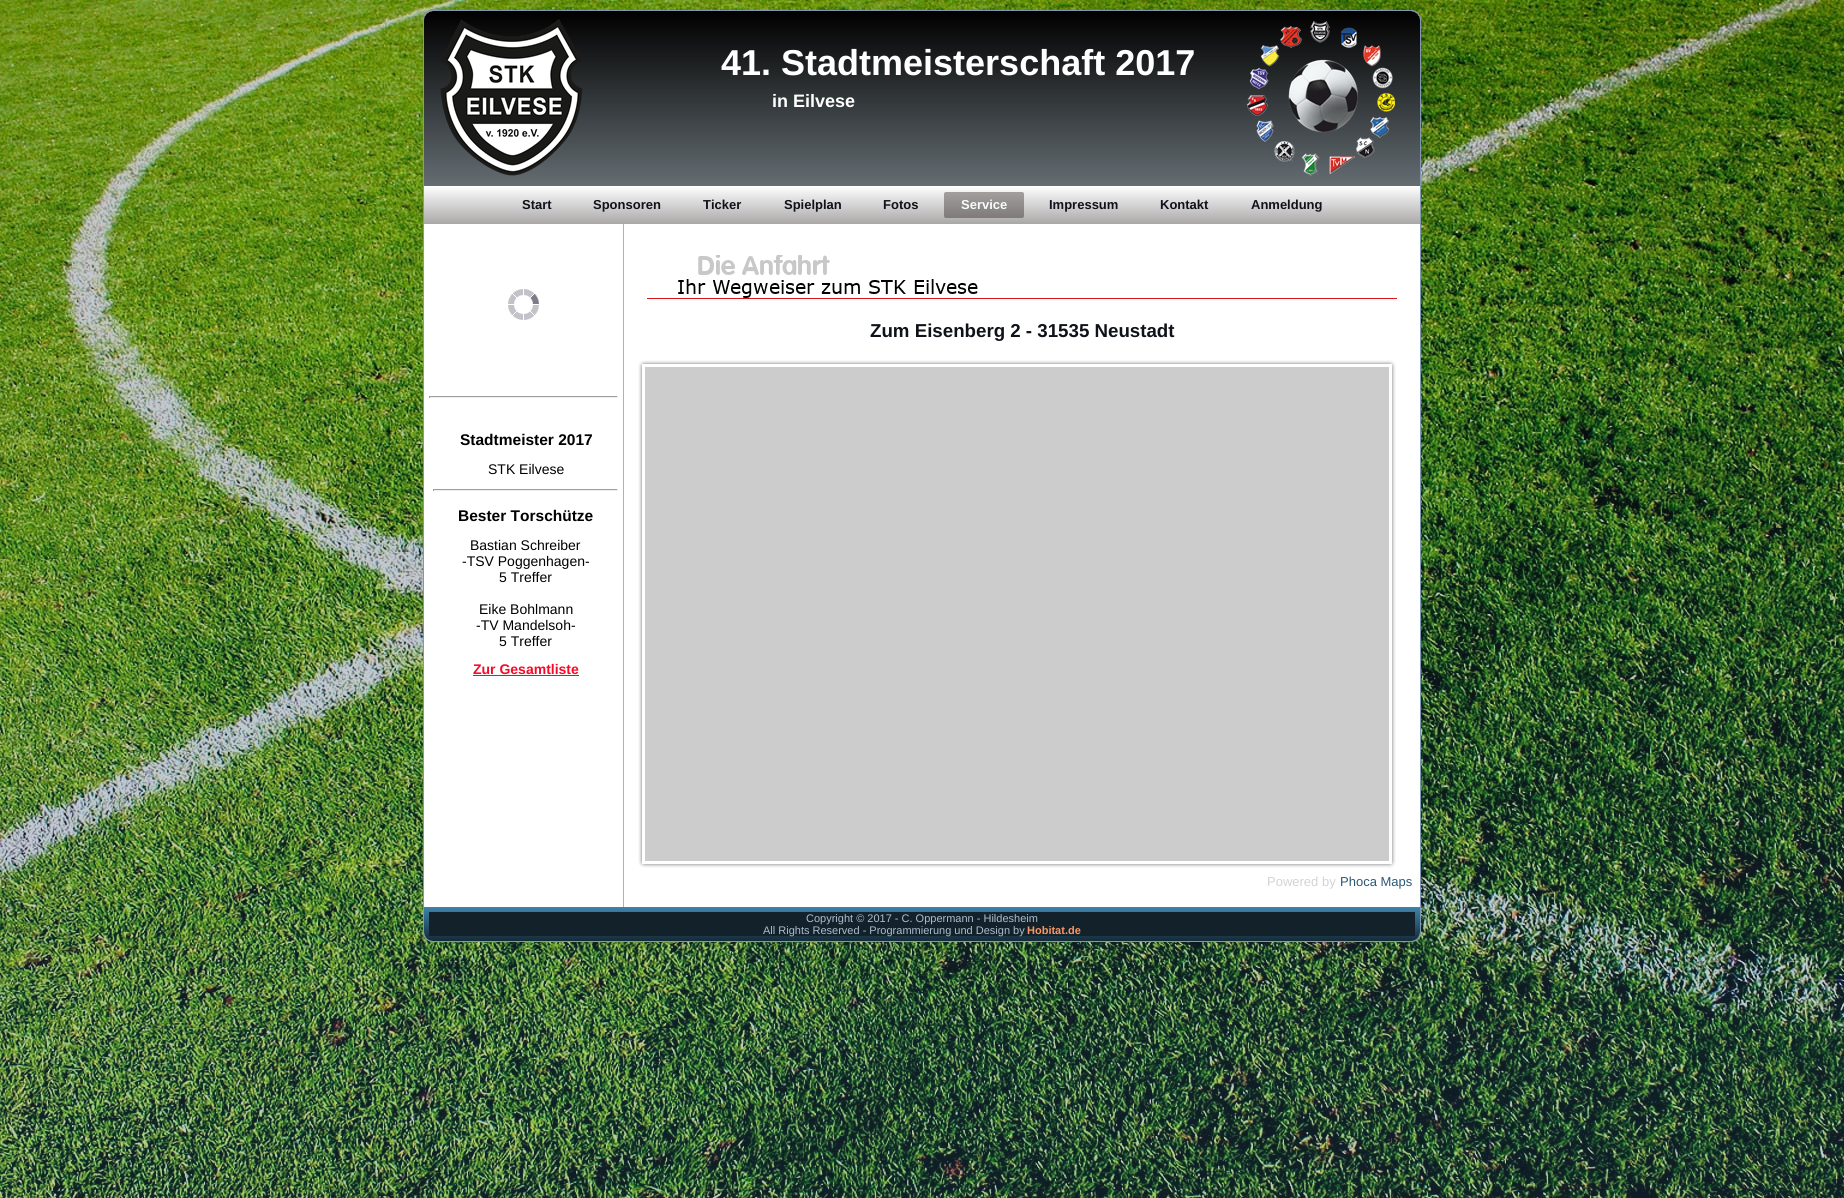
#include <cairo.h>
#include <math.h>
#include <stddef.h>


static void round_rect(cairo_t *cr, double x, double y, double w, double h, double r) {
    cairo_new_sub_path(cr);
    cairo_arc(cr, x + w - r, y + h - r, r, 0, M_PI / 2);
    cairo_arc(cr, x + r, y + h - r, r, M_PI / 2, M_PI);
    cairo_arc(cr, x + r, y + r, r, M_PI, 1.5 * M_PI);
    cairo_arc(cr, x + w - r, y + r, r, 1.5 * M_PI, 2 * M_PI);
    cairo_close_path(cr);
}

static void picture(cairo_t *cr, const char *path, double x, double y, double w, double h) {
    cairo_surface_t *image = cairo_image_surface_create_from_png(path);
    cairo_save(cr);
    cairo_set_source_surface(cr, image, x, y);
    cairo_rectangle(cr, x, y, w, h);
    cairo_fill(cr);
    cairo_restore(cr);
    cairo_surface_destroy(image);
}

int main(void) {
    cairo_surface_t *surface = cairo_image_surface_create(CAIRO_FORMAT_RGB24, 1844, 1198);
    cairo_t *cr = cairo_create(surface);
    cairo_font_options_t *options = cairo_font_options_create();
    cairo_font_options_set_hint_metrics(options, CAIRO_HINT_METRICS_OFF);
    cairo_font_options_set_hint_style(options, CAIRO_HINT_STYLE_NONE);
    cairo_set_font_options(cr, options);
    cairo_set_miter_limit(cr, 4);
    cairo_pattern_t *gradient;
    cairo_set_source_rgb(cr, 1, 1, 1);
    cairo_paint(cr);
    picture(cr, "img1.png", 0, 0, 1844, 1198);
    cairo_set_source_rgb(cr, 1, 1, 1);
    round_rect(cr, 423.5, 10.5, 997, 931, 9.5);
    cairo_fill_preserve(cr);
    cairo_set_source_rgb(cr, 0.502, 0.6, 0.702);
    cairo_set_line_width(cr, 1);
    cairo_stroke(cr);
    picture(cr, "img2.png", 424, 11, 996, 175);
    cairo_select_font_face(cr, "Liberation Sans", CAIRO_FONT_SLANT_NORMAL, CAIRO_FONT_WEIGHT_BOLD);
    cairo_set_font_size(cr, 36);
    cairo_set_source_rgb(cr, 1, 1, 1);
    cairo_move_to(cr, 721, 75);
    cairo_show_text(cr, "41. Stadtmeisterschaft 2017");
    cairo_set_font_size(cr, 18);
    cairo_move_to(cr, 772, 107);
    cairo_show_text(cr, "in Eilvese");
    gradient = cairo_pattern_create_linear(922, 186, 922, 224);
    cairo_pattern_add_color_stop_rgba(gradient, 0, 1, 1, 1, 1);
    cairo_pattern_add_color_stop_rgba(gradient, 1, 0.667, 0.655, 0.655, 1);
    cairo_set_source(cr, gradient);
    cairo_pattern_destroy(gradient);
    cairo_rectangle(cr, 424, 187, 996, 37);
    cairo_fill(cr);
    cairo_set_font_size(cr, 13);
    cairo_set_source_rgb(cr, 0.059, 0.078, 0.098);
    cairo_move_to(cr, 522, 209);
    cairo_show_text(cr, "Start");
    cairo_move_to(cr, 593, 209);
    cairo_show_text(cr, "Sponsoren");
    cairo_move_to(cr, 703, 209);
    cairo_show_text(cr, "Ticker");
    cairo_move_to(cr, 784, 209);
    cairo_show_text(cr, "Spielplan");
    cairo_move_to(cr, 883, 209);
    cairo_show_text(cr, "Fotos");
    gradient = cairo_pattern_create_linear(984, 192, 984, 218);
    cairo_pattern_add_color_stop_rgba(gradient, 0, 0.639, 0.624, 0.624, 1);
    cairo_pattern_add_color_stop_rgba(gradient, 0.93, 0.51, 0.49, 0.49, 1);
    cairo_pattern_add_color_stop_rgba(gradient, 1, 0.498, 0.482, 0.478, 1);
    cairo_set_source(cr, gradient);
    cairo_pattern_destroy(gradient);
    round_rect(cr, 944, 192, 80, 26, 2);
    cairo_fill(cr);
    cairo_set_source_rgb(cr, 0.976, 0.98, 0.984);
    cairo_move_to(cr, 961, 209);
    cairo_show_text(cr, "Service");
    cairo_set_source_rgb(cr, 0.059, 0.078, 0.098);
    cairo_move_to(cr, 1049, 209);
    cairo_show_text(cr, "Impressum");
    cairo_move_to(cr, 1160, 209);
    cairo_show_text(cr, "Kontakt");
    cairo_move_to(cr, 1251, 209);
    cairo_show_text(cr, "Anmeldung");
    cairo_set_source_rgb(cr, 0.639, 0.706, 0.784);
    cairo_rectangle(cr, 623, 224, 1, 683);
    cairo_fill(cr);
    picture(cr, "img3.png", 508, 289, 31, 31);
    cairo_set_source_rgb(cr, 0.624, 0.624, 0.624);
    cairo_rectangle(cr, 429, 396, 189, 1);
    cairo_fill(cr);
    cairo_set_source_rgb(cr, 0.933, 0.933, 0.933);
    cairo_rectangle(cr, 617, 396, 1, 2);
    cairo_fill(cr);
    cairo_rectangle(cr, 429, 397, 189, 1);
    cairo_fill(cr);
    cairo_set_source_rgb(cr, 0.624, 0.624, 0.624);
    cairo_rectangle(cr, 429, 396, 1, 2);
    cairo_fill(cr);
    cairo_set_font_size(cr, 15.5);
    cairo_set_source_rgb(cr, 0, 0, 0);
    cairo_move_to(cr, 460, 445);
    cairo_show_text(cr, "Stadtmeister 2017");
    cairo_select_font_face(cr, "Liberation Sans", CAIRO_FONT_SLANT_NORMAL, CAIRO_FONT_WEIGHT_NORMAL);
    cairo_set_font_size(cr, 14);
    cairo_move_to(cr, 488, 474);
    cairo_show_text(cr, "STK Eilvese");
    cairo_set_source_rgb(cr, 0.624, 0.624, 0.624);
    cairo_rectangle(cr, 433, 489, 185, 1);
    cairo_fill(cr);
    cairo_set_source_rgb(cr, 0.933, 0.933, 0.933);
    cairo_rectangle(cr, 617, 489, 1, 2);
    cairo_fill(cr);
    cairo_rectangle(cr, 433, 490, 185, 1);
    cairo_fill(cr);
    cairo_set_source_rgb(cr, 0.624, 0.624, 0.624);
    cairo_rectangle(cr, 433, 489, 1, 2);
    cairo_fill(cr);
    cairo_select_font_face(cr, "Liberation Sans", CAIRO_FONT_SLANT_NORMAL, CAIRO_FONT_WEIGHT_BOLD);
    cairo_set_font_size(cr, 15.5);
    cairo_set_source_rgb(cr, 0, 0, 0);
    cairo_move_to(cr, 458, 521);
    cairo_show_text(cr, "Bester Torschütze");
    cairo_select_font_face(cr, "Liberation Sans", CAIRO_FONT_SLANT_NORMAL, CAIRO_FONT_WEIGHT_NORMAL);
    cairo_set_font_size(cr, 14);
    cairo_move_to(cr, 470, 550);
    cairo_show_text(cr, "Bastian Schreiber");
    cairo_move_to(cr, 462, 566);
    cairo_show_text(cr, "-TSV Poggenhagen-");
    cairo_move_to(cr, 499, 582);
    cairo_show_text(cr, "5 Treffer");
    cairo_move_to(cr, 479, 614);
    cairo_show_text(cr, "Eike Bohlmann");
    cairo_move_to(cr, 476, 630);
    cairo_show_text(cr, "-TV Mandelsoh-");
    cairo_move_to(cr, 499, 646);
    cairo_show_text(cr, "5 Treffer");
    cairo_select_font_face(cr, "Liberation Sans", CAIRO_FONT_SLANT_NORMAL, CAIRO_FONT_WEIGHT_BOLD);
    cairo_set_source_rgb(cr, 0.969, 0.039, 0.145);
    cairo_move_to(cr, 473, 674);
    cairo_show_text(cr, "Zur Gesamtliste");
    cairo_rectangle(cr, 473, 675, 106, 1);
    cairo_fill(cr);
    picture(cr, "img4.png", 647, 255, 750, 44);
    cairo_set_font_size(cr, 18.7);
    cairo_set_source_rgb(cr, 0.059, 0.078, 0.098);
    cairo_move_to(cr, 870, 337);
    cairo_show_text(cr, "Zum Eisenberg 2 - 31535 Neustadt");
    picture(cr, "img5.png", 645, 375, 751, 493);
    picture(cr, "img6.png", 632, 375, 13, 493);
    picture(cr, "img7.png", 632, 354, 764, 21);
    picture(cr, "img8.png", 632, 360, 13, 15);
    cairo_select_font_face(cr, "Liberation Sans", CAIRO_FONT_SLANT_NORMAL, CAIRO_FONT_WEIGHT_NORMAL);
    cairo_set_font_size(cr, 13);
    cairo_set_source_rgb(cr, 0.827, 0.827, 0.827);
    cairo_move_to(cr, 1267, 886);
    cairo_show_text(cr, "Powered by");
    cairo_set_source_rgb(cr, 0.169, 0.349, 0.451);
    cairo_move_to(cr, 1340, 886);
    cairo_show_text(cr, "Phoca Maps");
    gradient = cairo_pattern_create_linear(922, 907, 922, 941);
    cairo_pattern_add_color_stop_rgba(gradient, 0, 0.247, 0.518, 0.671, 1);
    cairo_pattern_add_color_stop_rgba(gradient, 1, 0.082, 0.169, 0.22, 1);
    cairo_set_source(cr, gradient);
    cairo_pattern_destroy(gradient);
    cairo_new_path(cr);
    cairo_move_to(cr, 424, 907);
    cairo_line_to(cr, 1420, 907);
    cairo_line_to(cr, 1420, 932);
    cairo_curve_to(cr, 1420, 937, 1416, 941, 1411, 941);
    cairo_line_to(cr, 433, 941);
    cairo_curve_to(cr, 428, 941, 424, 937, 424, 932);
    cairo_close_path(cr);
    cairo_fill(cr);
    cairo_set_source_rgb(cr, 0.075, 0.133, 0.165);
    cairo_rectangle(cr, 429, 912, 986, 24);
    cairo_fill(cr);
    cairo_set_font_size(cr, 11);
    cairo_set_source_rgb(cr, 0.675, 0.741, 0.804);
    cairo_move_to(cr, 806, 922);
    cairo_show_text(cr, "Copyright © 2017 - C. Oppermann - Hildesheim");
    cairo_move_to(cr, 763, 934);
    cairo_show_text(cr, "All Rights Reserved - Programmierung und Design by");
    cairo_select_font_face(cr, "Liberation Sans", CAIRO_FONT_SLANT_NORMAL, CAIRO_FONT_WEIGHT_BOLD);
    cairo_set_source_rgb(cr, 0.988, 0.592, 0.392);
    cairo_move_to(cr, 1027, 934);
    cairo_show_text(cr, "Hobitat.de");
    cairo_surface_write_to_png(surface, "page.png");
    cairo_font_options_destroy(options);
    cairo_destroy(cr);
    cairo_surface_destroy(surface);
    return 0;
}
